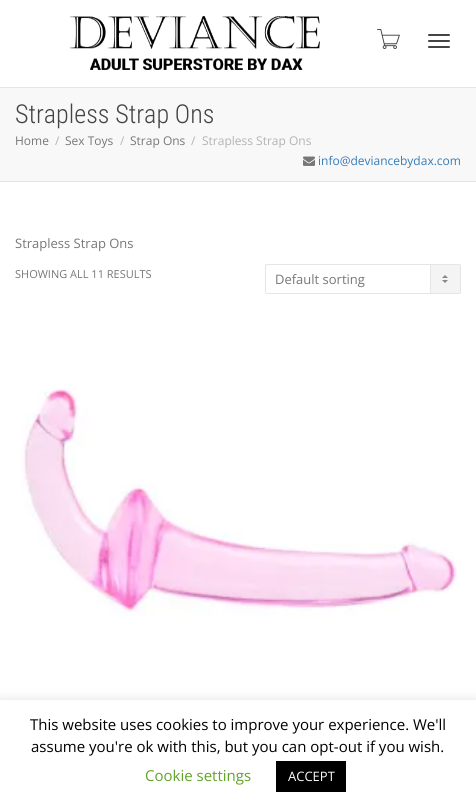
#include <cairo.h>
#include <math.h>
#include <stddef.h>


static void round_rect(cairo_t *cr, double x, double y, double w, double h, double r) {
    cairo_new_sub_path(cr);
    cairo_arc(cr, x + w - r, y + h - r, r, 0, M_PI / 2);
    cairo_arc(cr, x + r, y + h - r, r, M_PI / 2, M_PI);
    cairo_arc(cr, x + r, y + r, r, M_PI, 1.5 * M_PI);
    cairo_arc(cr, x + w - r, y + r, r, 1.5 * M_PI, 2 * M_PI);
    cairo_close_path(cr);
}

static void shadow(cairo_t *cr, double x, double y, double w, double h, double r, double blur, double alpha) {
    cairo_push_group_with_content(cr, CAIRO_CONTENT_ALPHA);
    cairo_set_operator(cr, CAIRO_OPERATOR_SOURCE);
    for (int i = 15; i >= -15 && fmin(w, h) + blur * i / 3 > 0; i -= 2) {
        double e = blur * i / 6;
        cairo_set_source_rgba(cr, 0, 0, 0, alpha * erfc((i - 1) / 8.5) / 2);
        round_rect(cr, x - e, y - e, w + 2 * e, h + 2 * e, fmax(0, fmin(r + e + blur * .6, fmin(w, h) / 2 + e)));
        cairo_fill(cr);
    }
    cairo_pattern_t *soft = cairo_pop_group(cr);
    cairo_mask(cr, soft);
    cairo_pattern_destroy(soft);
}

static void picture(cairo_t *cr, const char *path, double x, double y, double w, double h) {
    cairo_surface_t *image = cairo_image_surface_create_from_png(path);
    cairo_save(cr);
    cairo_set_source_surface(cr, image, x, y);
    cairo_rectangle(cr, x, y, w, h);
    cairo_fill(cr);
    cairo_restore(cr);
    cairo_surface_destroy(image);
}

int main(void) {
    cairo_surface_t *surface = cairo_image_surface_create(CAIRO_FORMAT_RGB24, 476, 809);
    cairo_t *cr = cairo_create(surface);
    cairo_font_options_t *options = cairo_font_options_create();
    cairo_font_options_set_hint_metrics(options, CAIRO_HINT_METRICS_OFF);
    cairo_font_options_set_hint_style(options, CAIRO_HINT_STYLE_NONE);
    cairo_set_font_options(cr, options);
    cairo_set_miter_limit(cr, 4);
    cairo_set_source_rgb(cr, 1, 1, 1);
    cairo_paint(cr);
    cairo_set_source_rgb(cr, 0.898, 0.898, 0.898);
    cairo_rectangle(cr, 0, 87, 476, 1);
    cairo_fill(cr);
    picture(cr, "img1.png", 70, 16, 250, 54);
    picture(cr, "img2.png", 377, 29, 23, 20);
    cairo_set_source_rgb(cr, 0.267, 0.267, 0.267);
    round_rect(cr, 428, 34, 22, 2, 1);
    cairo_fill(cr);
    round_rect(cr, 428, 40, 22, 2, 1);
    cairo_fill(cr);
    round_rect(cr, 428, 46, 22, 2, 1);
    cairo_fill(cr);
    cairo_set_source_rgb(cr, 0.969, 0.969, 0.969);
    cairo_rectangle(cr, 0, 88, 476, 93);
    cairo_fill(cr);
    cairo_set_source_rgb(cr, 0.898, 0.898, 0.898);
    cairo_rectangle(cr, 0, 181, 476, 1);
    cairo_fill(cr);
    cairo_select_font_face(cr, "Roboto Condensed Light", CAIRO_FONT_SLANT_NORMAL, CAIRO_FONT_WEIGHT_NORMAL);
    cairo_set_font_size(cr, 26);
    cairo_set_source_rgb(cr, 0.267, 0.267, 0.267);
    cairo_move_to(cr, 15, 123);
    cairo_show_text(cr, "Strapless Strap Ons");
    cairo_select_font_face(cr, "Open Sans", CAIRO_FONT_SLANT_NORMAL, CAIRO_FONT_WEIGHT_NORMAL);
    cairo_set_font_size(cr, 12);
    cairo_set_source_rgb(cr, 0.467, 0.467, 0.467);
    cairo_move_to(cr, 15, 145);
    cairo_show_text(cr, "Home");
    cairo_set_source_rgb(cr, 0.702, 0.702, 0.702);
    cairo_move_to(cr, 55, 145);
    cairo_show_text(cr, "/");
    cairo_set_source_rgb(cr, 0.467, 0.467, 0.467);
    cairo_move_to(cr, 65, 145);
    cairo_show_text(cr, "Sex Toys");
    cairo_set_source_rgb(cr, 0.702, 0.702, 0.702);
    cairo_move_to(cr, 120, 145);
    cairo_show_text(cr, "/");
    cairo_set_source_rgb(cr, 0.467, 0.467, 0.467);
    cairo_move_to(cr, 130, 145);
    cairo_show_text(cr, "Strap Ons");
    cairo_set_source_rgb(cr, 0.702, 0.702, 0.702);
    cairo_move_to(cr, 191, 145);
    cairo_show_text(cr, "/");
    cairo_move_to(cr, 202, 145);
    cairo_show_text(cr, "Strapless Strap Ons");
    picture(cr, "img3.png", 303, 156, 12, 10);
    cairo_set_source_rgb(cr, 0.212, 0.482, 0.718);
    cairo_move_to(cr, 318, 165);
    cairo_show_text(cr, "info@deviancebydax.com");
    cairo_set_font_size(cr, 13);
    cairo_set_source_rgb(cr, 0.467, 0.467, 0.467);
    cairo_move_to(cr, 15, 248);
    cairo_show_text(cr, "Strapless Strap Ons");
    cairo_set_font_size(cr, 11);
    cairo_move_to(cr, 15, 278);
    cairo_show_text(cr, "SHOWING ALL 11 RESULTS");
    picture(cr, "img4.png", 430, 264, 30, 30);
    round_rect(cr, 265.5, 264.5, 195, 29, 1.5);
    cairo_set_source_rgb(cr, 0.898, 0.898, 0.898);
    cairo_set_line_width(cr, 1);
    cairo_stroke(cr);
    cairo_set_font_size(cr, 13);
    cairo_set_source_rgb(cr, 0.467, 0.467, 0.467);
    cairo_move_to(cr, 275, 284);
    cairo_show_text(cr, "Default sorting");
    picture(cr, "img5.png", 21, 388, 436, 228);
    cairo_set_source_rgb(cr, 0.675, 0.671, 0.671);
    shadow(cr, 0, 699, 476, 109, 0, 5, 0.3);
    cairo_set_source_rgb(cr, 1, 1, 1);
    cairo_rectangle(cr, 0, 700, 476, 109);
    cairo_fill(cr);
    cairo_set_font_size(cr, 15);
    cairo_set_source_rgb(cr, 0, 0, 0);
    cairo_move_to(cr, 30, 730);
    cairo_show_text(cr, "This website uses cookies to improve your experience. We'll");
    cairo_move_to(cr, 31, 752);
    cairo_show_text(cr, "assume you're ok with this, but you can opt-out if you wish.");
    cairo_set_source_rgb(cr, 0.384, 0.639, 0.161);
    cairo_move_to(cr, 145, 781);
    cairo_show_text(cr, "Cookie settings");
    cairo_set_source_rgb(cr, 0, 0, 0);
    cairo_rectangle(cr, 276, 761, 70, 31);
    cairo_fill(cr);
    cairo_set_font_size(cr, 13);
    cairo_set_source_rgb(cr, 1, 1, 1);
    cairo_move_to(cr, 288, 781);
    cairo_show_text(cr, "ACCEPT");
    cairo_surface_write_to_png(surface, "page.png");
    cairo_font_options_destroy(options);
    cairo_destroy(cr);
    cairo_surface_destroy(surface);
    return 0;
}
